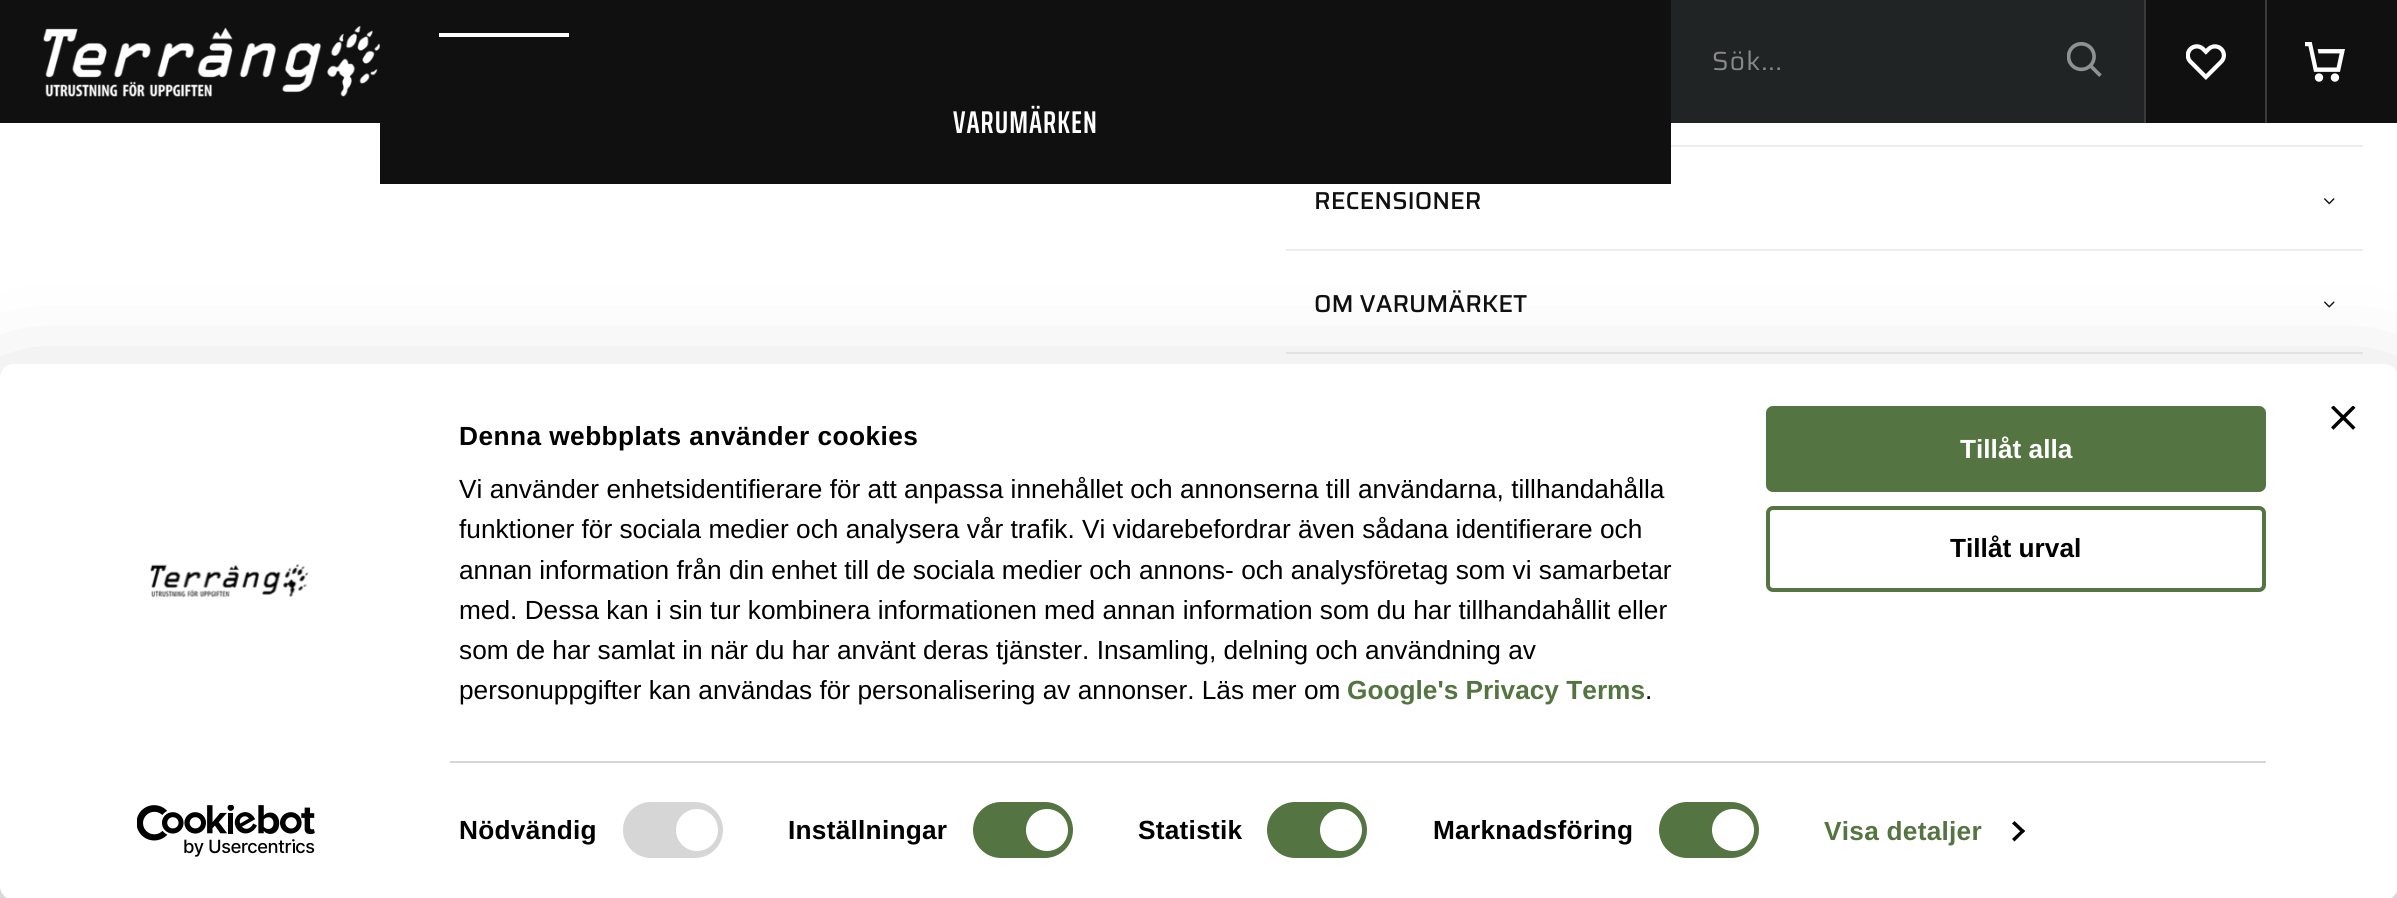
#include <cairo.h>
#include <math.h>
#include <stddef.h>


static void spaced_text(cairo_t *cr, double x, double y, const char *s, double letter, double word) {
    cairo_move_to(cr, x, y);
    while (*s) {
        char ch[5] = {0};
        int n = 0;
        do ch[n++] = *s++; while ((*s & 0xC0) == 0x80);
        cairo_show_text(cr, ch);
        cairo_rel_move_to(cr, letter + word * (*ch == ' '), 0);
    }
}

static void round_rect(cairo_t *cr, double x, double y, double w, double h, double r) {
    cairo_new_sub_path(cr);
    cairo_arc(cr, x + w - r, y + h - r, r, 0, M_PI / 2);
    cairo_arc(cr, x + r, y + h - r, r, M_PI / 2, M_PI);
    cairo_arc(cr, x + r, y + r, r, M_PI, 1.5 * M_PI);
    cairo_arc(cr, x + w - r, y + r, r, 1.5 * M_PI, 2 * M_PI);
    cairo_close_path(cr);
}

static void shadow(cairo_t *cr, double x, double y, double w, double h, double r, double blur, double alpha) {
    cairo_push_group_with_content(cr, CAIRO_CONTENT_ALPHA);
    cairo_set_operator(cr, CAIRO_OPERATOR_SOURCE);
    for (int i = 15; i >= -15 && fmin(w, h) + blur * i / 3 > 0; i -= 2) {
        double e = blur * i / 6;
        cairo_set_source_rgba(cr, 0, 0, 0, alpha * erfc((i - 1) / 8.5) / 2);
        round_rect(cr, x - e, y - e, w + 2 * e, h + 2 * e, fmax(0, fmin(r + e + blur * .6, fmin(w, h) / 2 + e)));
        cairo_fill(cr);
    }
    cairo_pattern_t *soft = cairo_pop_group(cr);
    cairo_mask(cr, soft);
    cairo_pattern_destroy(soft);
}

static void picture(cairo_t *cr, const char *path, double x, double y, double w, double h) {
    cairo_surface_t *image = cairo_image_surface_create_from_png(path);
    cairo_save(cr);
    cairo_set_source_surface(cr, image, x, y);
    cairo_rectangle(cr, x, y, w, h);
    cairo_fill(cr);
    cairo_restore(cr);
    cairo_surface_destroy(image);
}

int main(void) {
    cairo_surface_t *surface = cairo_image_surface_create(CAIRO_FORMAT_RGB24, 2397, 898);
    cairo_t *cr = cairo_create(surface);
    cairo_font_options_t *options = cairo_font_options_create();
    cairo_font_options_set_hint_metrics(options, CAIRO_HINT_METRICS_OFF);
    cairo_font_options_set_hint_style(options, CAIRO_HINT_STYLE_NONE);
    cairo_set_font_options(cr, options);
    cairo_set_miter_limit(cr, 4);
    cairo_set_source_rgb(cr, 1, 1, 1);
    cairo_paint(cr);
    cairo_set_source_rgb(cr, 0.063, 0.063, 0.063);
    cairo_rectangle(cr, 0, 0, 2397, 123);
    cairo_fill(cr);
    picture(cr, "img1.png", 43, 26, 337, 71);
    cairo_set_source_rgb(cr, 0.125, 0.141, 0.141);
    cairo_rectangle(cr, 1671, 0, 473, 123);
    cairo_fill(cr);
    cairo_select_font_face(cr, "Saira", CAIRO_FONT_SLANT_NORMAL, CAIRO_FONT_WEIGHT_NORMAL);
    cairo_set_font_size(cr, 26.25);
    cairo_set_source_rgb(cr, 0.533, 0.533, 0.533);
    spaced_text(cr, 1712, 70, "Sök...", 1.25, 0);
    picture(cr, "img2.png", 2067, 42, 35, 35);
    cairo_set_source_rgb(cr, 0.224, 0.227, 0.227);
    cairo_rectangle(cr, 2265, 0, 2, 123);
    cairo_fill(cr);
    cairo_rectangle(cr, 2144, 0, 2, 123);
    cairo_fill(cr);
    picture(cr, "img3.png", 2186, 44, 40, 36);
    picture(cr, "img4.png", 2305, 42, 40, 40);
    cairo_set_source_rgb(cr, 0.063, 0.063, 0.063);
    cairo_rectangle(cr, 380, 123, 1291, 61);
    cairo_fill(cr);
    cairo_set_source_rgb(cr, 1, 1, 1);
    cairo_rectangle(cr, 439, 33, 130, 4);
    cairo_fill(cr);
    cairo_select_font_face(cr, "Saira ExtraCondensed SemiBold", CAIRO_FONT_SLANT_NORMAL, CAIRO_FONT_WEIGHT_NORMAL);
    cairo_set_font_size(cr, 31.5);
    spaced_text(cr, 953, 133, "VARUMÄRKEN", 1, 0);
    cairo_set_source_rgb(cr, 0.929, 0.929, 0.929);
    cairo_rectangle(cr, 1671, 145, 692, 2);
    cairo_fill(cr);
    cairo_select_font_face(cr, "Saira Medium", CAIRO_FONT_SLANT_NORMAL, CAIRO_FONT_WEIGHT_NORMAL);
    cairo_set_font_size(cr, 24.5);
    cairo_set_source_rgb(cr, 0.063, 0.063, 0.063);
    cairo_move_to(cr, 1314, 209);
    cairo_show_text(cr, "RECENSIONER");
    picture(cr, "img5.png", 2324, 198, 11, 7);
    cairo_set_source_rgb(cr, 0.929, 0.929, 0.929);
    cairo_rectangle(cr, 1286, 249, 1077, 2);
    cairo_fill(cr);
    cairo_rectangle(cr, 1286, 352, 1077, 2);
    cairo_fill(cr);
    cairo_set_source_rgb(cr, 0.063, 0.063, 0.063);
    cairo_move_to(cr, 1314, 312);
    cairo_show_text(cr, "OM VARUMÄRKET");
    picture(cr, "img6.png", 2324, 301, 11, 7);
    cairo_set_source_rgb(cr, 0, 0, 0);
    shadow(cr, 0, 417, 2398, 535, 14, 61, 0.3);
    cairo_set_source_rgb(cr, 1, 1, 1);
    round_rect(cr, 0, 364, 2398, 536, 14);
    cairo_fill(cr);
    picture(cr, "img7.png", 2331, 406, 25, 24);
    cairo_select_font_face(cr, "Liberation Sans", CAIRO_FONT_SLANT_NORMAL, CAIRO_FONT_WEIGHT_BOLD);
    cairo_set_font_size(cr, 26.25);
    cairo_set_source_rgb(cr, 0, 0, 0);
    spaced_text(cr, 459, 445, "Denna webbplats använder cookies", 0.45, 0);
    cairo_select_font_face(cr, "Liberation Sans", CAIRO_FONT_SLANT_NORMAL, CAIRO_FONT_WEIGHT_NORMAL);
    cairo_move_to(cr, 459, 498);
    cairo_show_text(cr, "Vi använder enhetsidentifierare för att anpassa innehållet och annonserna till användarna, tillhandahålla");
    cairo_move_to(cr, 459, 538);
    cairo_show_text(cr, "funktioner för sociala medier och analysera vår trafik. Vi vidarebefordrar även sådana identifierare och");
    cairo_move_to(cr, 459, 579);
    cairo_show_text(cr, "annan information från din enhet till de sociala medier och annons- och analysföretag som vi samarbetar");
    cairo_move_to(cr, 459, 619);
    cairo_show_text(cr, "med. Dessa kan i sin tur kombinera informationen med annan information som du har tillhandahållit eller");
    cairo_move_to(cr, 459, 659);
    cairo_show_text(cr, "som de har samlat in när du har använt deras tjänster. Insamling, delning och användning av");
    cairo_move_to(cr, 459, 699);
    cairo_show_text(cr, "personuppgifter kan användas för personalisering av annonser. Läs mer om");
    cairo_select_font_face(cr, "Liberation Sans", CAIRO_FONT_SLANT_NORMAL, CAIRO_FONT_WEIGHT_BOLD);
    cairo_set_source_rgb(cr, 0.329, 0.455, 0.255);
    cairo_move_to(cr, 1347, 699);
    cairo_show_text(cr, "Google's Privacy Terms");
    cairo_select_font_face(cr, "Liberation Sans", CAIRO_FONT_SLANT_NORMAL, CAIRO_FONT_WEIGHT_NORMAL);
    cairo_set_source_rgb(cr, 0, 0, 0);
    cairo_move_to(cr, 1645, 699);
    cairo_show_text(cr, ".");
    cairo_set_source_rgb(cr, 0.839, 0.839, 0.839);
    cairo_rectangle(cr, 450, 761, 1816, 2);
    cairo_fill(cr);
    cairo_select_font_face(cr, "Liberation Sans", CAIRO_FONT_SLANT_NORMAL, CAIRO_FONT_WEIGHT_BOLD);
    cairo_set_source_rgb(cr, 0, 0, 0);
    spaced_text(cr, 459, 839, "Nödvändig", 0.25, 0);
    cairo_set_source_rgb(cr, 0.839, 0.839, 0.839);
    round_rect(cr, 623, 802, 100, 56, 28);
    cairo_fill(cr);
    cairo_set_source_rgb(cr, 1, 1, 1);
    cairo_arc(cr, 697, 830, 21, 0, 2 * M_PI);
    cairo_fill(cr);
    cairo_set_source_rgb(cr, 0, 0, 0);
    spaced_text(cr, 788, 839, "Inställningar", 0.25, 0);
    cairo_set_source_rgb(cr, 0.329, 0.455, 0.255);
    round_rect(cr, 973, 802, 100, 56, 28);
    cairo_fill(cr);
    cairo_set_source_rgb(cr, 1, 1, 1);
    cairo_arc(cr, 1047, 830, 21, 0, 2 * M_PI);
    cairo_fill(cr);
    cairo_set_source_rgb(cr, 0, 0, 0);
    spaced_text(cr, 1138, 839, "Statistik", 0.25, 0);
    cairo_set_source_rgb(cr, 0.329, 0.455, 0.255);
    round_rect(cr, 1267, 802, 100, 56, 28);
    cairo_fill(cr);
    cairo_set_source_rgb(cr, 1, 1, 1);
    cairo_arc(cr, 1341, 830, 21, 0, 2 * M_PI);
    cairo_fill(cr);
    cairo_set_source_rgb(cr, 0, 0, 0);
    spaced_text(cr, 1433, 839, "Marknadsföring", 0.25, 0);
    cairo_set_source_rgb(cr, 0.329, 0.455, 0.255);
    round_rect(cr, 1659, 802, 100, 56, 28);
    cairo_fill(cr);
    cairo_set_source_rgb(cr, 1, 1, 1);
    cairo_arc(cr, 1733, 830, 21, 0, 2 * M_PI);
    cairo_fill(cr);
    cairo_set_source_rgb(cr, 0.329, 0.455, 0.255);
    spaced_text(cr, 1824, 840, "Visa detaljer", 0.25, 0);
    cairo_set_source_rgb(cr, 0, 0, 0);
    cairo_new_path(cr);
    cairo_move_to(cr, 2014.5, 821);
    cairo_line_to(cr, 2025, 831);
    cairo_line_to(cr, 2022.5, 833.5);
    cairo_line_to(cr, 2012, 823.5);
    cairo_close_path(cr);
    cairo_fill(cr);
    cairo_new_path(cr);
    cairo_move_to(cr, 2022.5, 829);
    cairo_line_to(cr, 2025, 831);
    cairo_line_to(cr, 2014.5, 841.5);
    cairo_line_to(cr, 2012, 839);
    cairo_close_path(cr);
    cairo_fill(cr);
    cairo_set_source_rgb(cr, 0.329, 0.455, 0.255);
    round_rect(cr, 1768, 408, 496, 82, 5);
    cairo_fill_preserve(cr);
    cairo_set_line_width(cr, 4);
    cairo_stroke(cr);
    cairo_set_source_rgb(cr, 1, 1, 1);
    cairo_move_to(cr, 1960, 458);
    cairo_show_text(cr, "Tillåt alla");
    round_rect(cr, 1768, 508, 496, 82, 5);
    cairo_set_source_rgb(cr, 0.329, 0.455, 0.255);
    cairo_stroke(cr);
    cairo_set_source_rgb(cr, 0, 0, 0);
    cairo_move_to(cr, 1950, 557);
    cairo_show_text(cr, "Tillåt urval");
    picture(cr, "img8.png", 150, 563, 159, 35);
    picture(cr, "img9.png", 137, 805, 178, 52);
    cairo_surface_write_to_png(surface, "page.png");
    cairo_font_options_destroy(options);
    cairo_destroy(cr);
    cairo_surface_destroy(surface);
    return 0;
}
